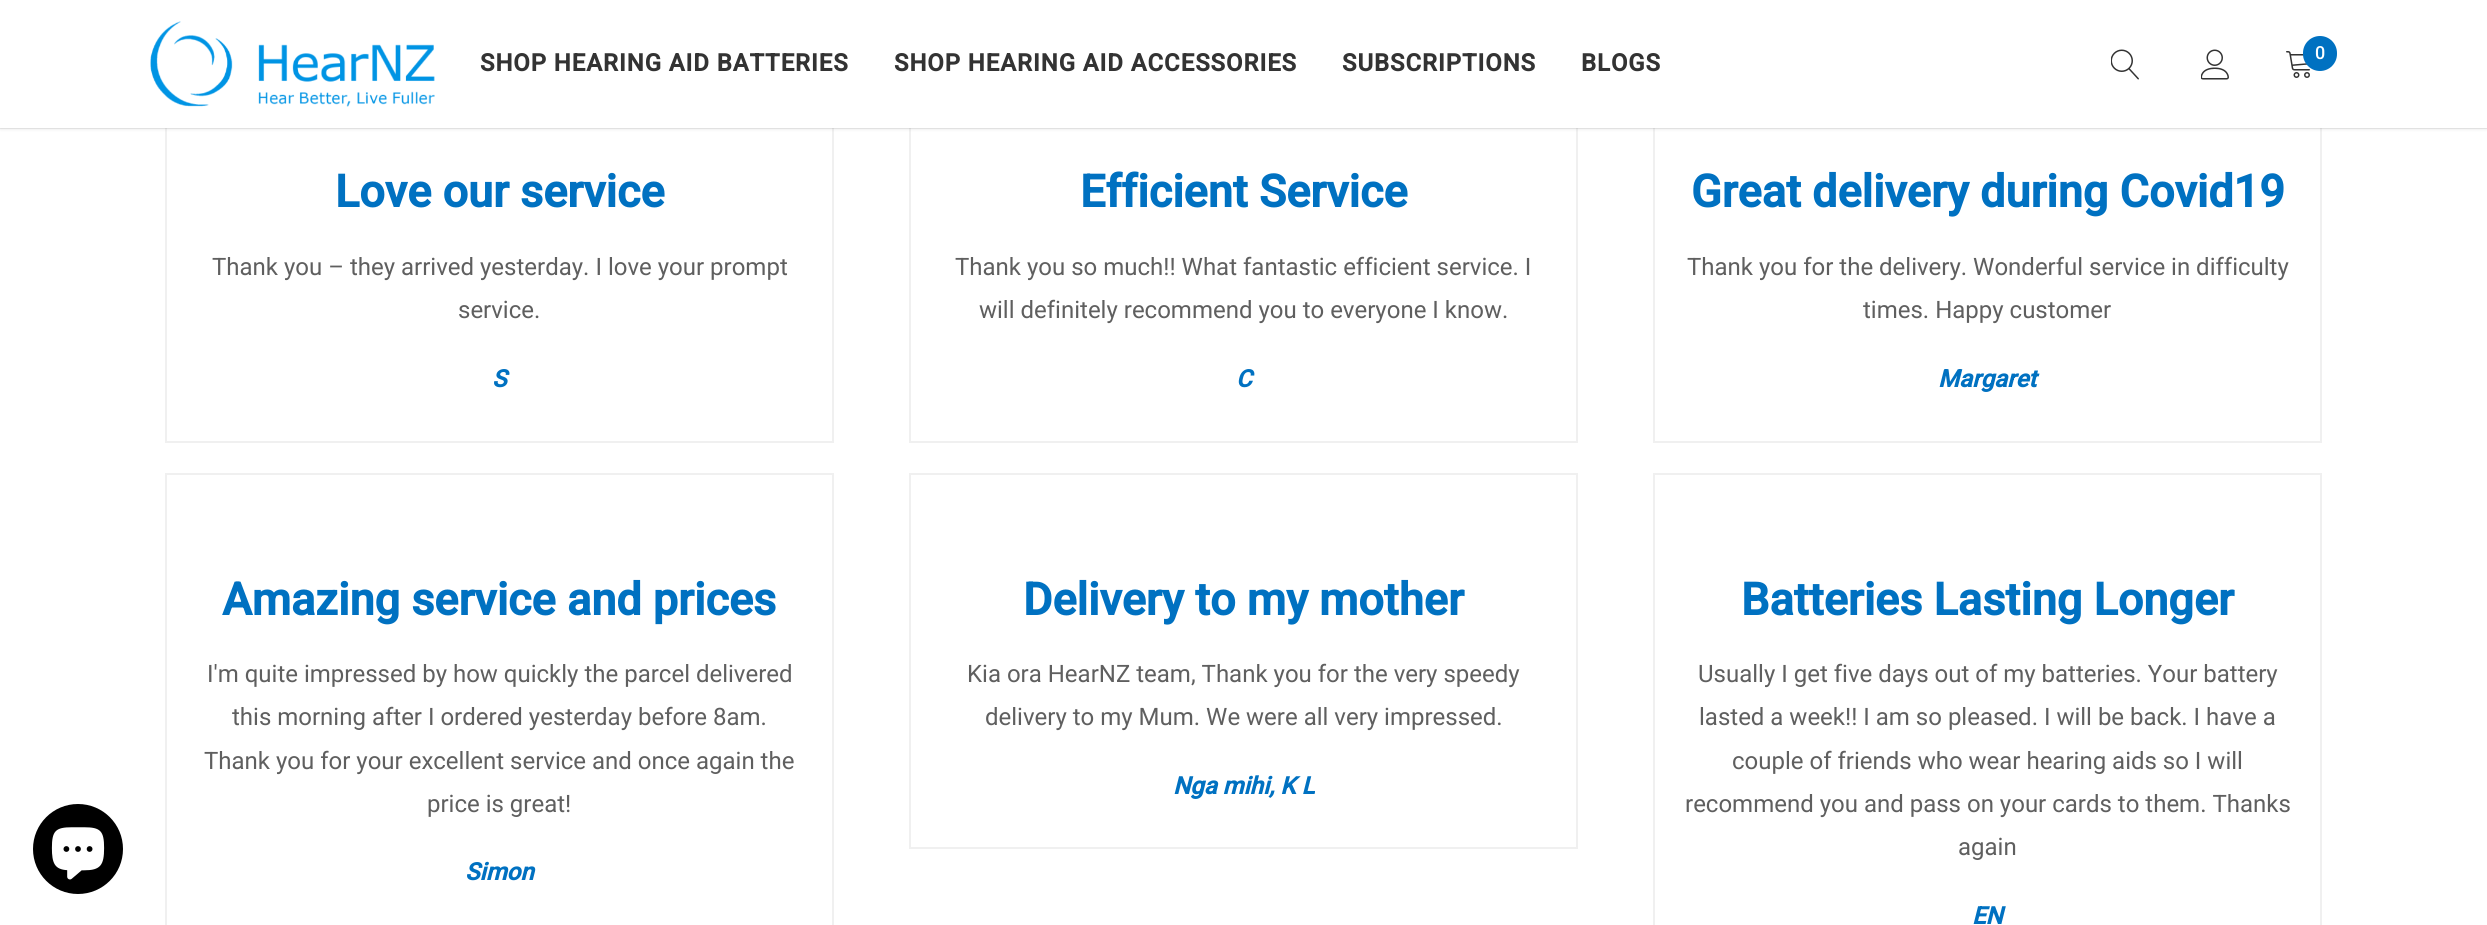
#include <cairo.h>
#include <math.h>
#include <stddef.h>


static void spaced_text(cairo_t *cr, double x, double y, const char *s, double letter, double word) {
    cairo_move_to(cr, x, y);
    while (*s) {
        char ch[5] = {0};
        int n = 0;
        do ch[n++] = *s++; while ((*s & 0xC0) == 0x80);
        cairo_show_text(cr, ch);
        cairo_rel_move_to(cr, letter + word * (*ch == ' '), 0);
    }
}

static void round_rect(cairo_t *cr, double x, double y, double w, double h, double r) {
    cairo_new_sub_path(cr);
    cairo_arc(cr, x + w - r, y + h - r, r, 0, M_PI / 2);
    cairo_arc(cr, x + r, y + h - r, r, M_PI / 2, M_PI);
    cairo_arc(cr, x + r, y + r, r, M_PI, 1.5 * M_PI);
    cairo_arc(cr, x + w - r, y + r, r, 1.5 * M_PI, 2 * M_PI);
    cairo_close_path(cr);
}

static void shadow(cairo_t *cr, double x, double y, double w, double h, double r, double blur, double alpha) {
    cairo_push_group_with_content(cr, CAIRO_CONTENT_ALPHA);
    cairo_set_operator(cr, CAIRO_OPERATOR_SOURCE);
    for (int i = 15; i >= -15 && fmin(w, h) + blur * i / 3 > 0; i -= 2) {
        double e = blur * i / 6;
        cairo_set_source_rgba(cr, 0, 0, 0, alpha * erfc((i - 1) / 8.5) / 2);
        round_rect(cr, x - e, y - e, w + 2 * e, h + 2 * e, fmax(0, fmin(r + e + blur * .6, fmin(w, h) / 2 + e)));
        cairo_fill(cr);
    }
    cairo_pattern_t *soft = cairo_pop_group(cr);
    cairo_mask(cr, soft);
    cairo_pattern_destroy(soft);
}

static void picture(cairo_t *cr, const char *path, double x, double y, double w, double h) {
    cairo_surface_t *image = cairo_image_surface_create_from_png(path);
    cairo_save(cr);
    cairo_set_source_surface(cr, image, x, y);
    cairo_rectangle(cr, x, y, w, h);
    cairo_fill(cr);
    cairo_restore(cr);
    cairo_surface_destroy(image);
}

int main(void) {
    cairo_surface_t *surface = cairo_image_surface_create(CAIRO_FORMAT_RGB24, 2487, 925);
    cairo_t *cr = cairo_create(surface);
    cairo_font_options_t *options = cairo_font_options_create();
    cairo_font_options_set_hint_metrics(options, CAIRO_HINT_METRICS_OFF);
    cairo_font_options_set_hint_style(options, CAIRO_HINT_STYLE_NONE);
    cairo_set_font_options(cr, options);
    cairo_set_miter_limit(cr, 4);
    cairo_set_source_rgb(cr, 1, 1, 1);
    cairo_paint(cr);
    cairo_rectangle(cr, 166, 66, 667, 376);
    cairo_set_source_rgb(cr, 0.941, 0.941, 0.941);
    cairo_stroke(cr);
    cairo_rectangle(cr, 910, 66, 667, 376);
    cairo_stroke(cr);
    cairo_rectangle(cr, 1654, 66, 667, 376);
    cairo_stroke(cr);
    cairo_set_source_rgb(cr, 0, 0, 0);
    shadow(cr, 0, 2, 2487, 127, 0, 1.5, 0.1);
    cairo_rectangle(cr, 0, 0, 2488, 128);
    cairo_set_source_rgba(cr, 0, 0, 0, 0.06);
    cairo_stroke(cr);
    cairo_set_source_rgb(cr, 1, 1, 1);
    cairo_rectangle(cr, 0, 0, 2487, 128);
    cairo_fill(cr);
    picture(cr, "img1.png", 150, 21, 285, 86);
    cairo_select_font_face(cr, "Roboto", CAIRO_FONT_SLANT_NORMAL, CAIRO_FONT_WEIGHT_BOLD);
    cairo_set_font_size(cr, 24);
    cairo_set_source_rgb(cr, 0.2, 0.2, 0.2);
    spaced_text(cr, 480, 71, "SHOP HEARING AID BATTERIES", 0.9, 0);
    spaced_text(cr, 894, 71, "SHOP HEARING AID ACCESSORIES", 0.9, 0);
    spaced_text(cr, 1342, 71, "SUBSCRIPTIONS", 0.9, 0);
    spaced_text(cr, 1581, 71, "BLOGS", 0.9, 0);
    picture(cr, "img2.png", 2111, 49, 28, 31);
    picture(cr, "img3.png", 2201, 49, 28, 31);
    picture(cr, "img4.png", 2286, 51, 24, 27);
    cairo_set_source_rgb(cr, 0, 0.443, 0.757);
    round_rect(cr, 2303, 36, 34, 35, 17);
    cairo_fill(cr);
    cairo_select_font_face(cr, "Roboto Medium", CAIRO_FONT_SLANT_NORMAL, CAIRO_FONT_WEIGHT_NORMAL);
    cairo_set_font_size(cr, 18);
    cairo_set_source_rgb(cr, 1, 1, 1);
    cairo_move_to(cr, 2315, 59);
    cairo_show_text(cr, "0");
    cairo_set_source_rgb(cr, 0, 0, 0);
    cairo_new_path(cr);
    cairo_arc(cr, 78, 849, 45, 0, 2 * M_PI);
    cairo_fill(cr);
    picture(cr, "img5.png", 51, 827, 54, 53);
    cairo_select_font_face(cr, "Roboto", CAIRO_FONT_SLANT_NORMAL, CAIRO_FONT_WEIGHT_BOLD);
    cairo_set_font_size(cr, 45);
    cairo_set_source_rgb(cr, 0, 0.443, 0.757);
    cairo_move_to(cr, 335, 207);
    cairo_show_text(cr, "Love our service");
    cairo_select_font_face(cr, "Roboto", CAIRO_FONT_SLANT_NORMAL, CAIRO_FONT_WEIGHT_NORMAL);
    cairo_set_font_size(cr, 24);
    cairo_set_source_rgb(cr, 0.373, 0.373, 0.373);
    cairo_move_to(cr, 212, 275);
    cairo_show_text(cr, "Thank you – they arrived yesterday. I love your prompt");
    cairo_move_to(cr, 458, 318);
    cairo_show_text(cr, "service.");
    cairo_select_font_face(cr, "Roboto", CAIRO_FONT_SLANT_ITALIC, CAIRO_FONT_WEIGHT_BOLD);
    cairo_set_source_rgb(cr, 0, 0.443, 0.757);
    cairo_move_to(cr, 492, 387);
    cairo_show_text(cr, "S");
    cairo_select_font_face(cr, "Roboto", CAIRO_FONT_SLANT_NORMAL, CAIRO_FONT_WEIGHT_BOLD);
    cairo_set_font_size(cr, 45);
    cairo_move_to(cr, 1080, 207);
    cairo_show_text(cr, "Efficient Service");
    cairo_select_font_face(cr, "Roboto", CAIRO_FONT_SLANT_NORMAL, CAIRO_FONT_WEIGHT_NORMAL);
    cairo_set_font_size(cr, 24);
    cairo_set_source_rgb(cr, 0.373, 0.373, 0.373);
    cairo_move_to(cr, 955, 275);
    cairo_show_text(cr, "Thank you so much!! What fantastic efficient service. I");
    cairo_move_to(cr, 979, 318);
    cairo_show_text(cr, "will definitely recommend you to everyone I know.");
    cairo_select_font_face(cr, "Roboto", CAIRO_FONT_SLANT_ITALIC, CAIRO_FONT_WEIGHT_BOLD);
    cairo_set_source_rgb(cr, 0, 0.443, 0.757);
    cairo_move_to(cr, 1236, 387);
    cairo_show_text(cr, "C");
    cairo_select_font_face(cr, "Roboto", CAIRO_FONT_SLANT_NORMAL, CAIRO_FONT_WEIGHT_BOLD);
    cairo_set_font_size(cr, 45);
    cairo_move_to(cr, 1691, 207);
    cairo_show_text(cr, "Great delivery during Covid19");
    cairo_select_font_face(cr, "Roboto", CAIRO_FONT_SLANT_NORMAL, CAIRO_FONT_WEIGHT_NORMAL);
    cairo_set_font_size(cr, 24);
    cairo_set_source_rgb(cr, 0.373, 0.373, 0.373);
    cairo_move_to(cr, 1687, 275);
    cairo_show_text(cr, "Thank you for the delivery. Wonderful service in difficulty");
    cairo_move_to(cr, 1863, 318);
    cairo_show_text(cr, "times. Happy customer");
    cairo_select_font_face(cr, "Roboto", CAIRO_FONT_SLANT_ITALIC, CAIRO_FONT_WEIGHT_BOLD);
    cairo_set_source_rgb(cr, 0, 0.443, 0.757);
    cairo_move_to(cr, 1938, 387);
    cairo_show_text(cr, "Margaret");
    cairo_rectangle(cr, 166, 474, 667, 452);
    cairo_set_source_rgb(cr, 0.941, 0.941, 0.941);
    cairo_stroke(cr);
    cairo_select_font_face(cr, "Roboto", CAIRO_FONT_SLANT_NORMAL, CAIRO_FONT_WEIGHT_BOLD);
    cairo_set_font_size(cr, 45);
    cairo_set_source_rgb(cr, 0, 0.443, 0.757);
    cairo_move_to(cr, 222, 615);
    cairo_show_text(cr, "Amazing service and prices");
    cairo_select_font_face(cr, "Roboto", CAIRO_FONT_SLANT_NORMAL, CAIRO_FONT_WEIGHT_NORMAL);
    cairo_set_font_size(cr, 24);
    cairo_set_source_rgb(cr, 0.373, 0.373, 0.373);
    cairo_move_to(cr, 207, 682);
    cairo_show_text(cr, "I'm quite impressed by how quickly the parcel delivered");
    cairo_move_to(cr, 232, 725);
    cairo_show_text(cr, "this morning after I ordered yesterday before 8am.");
    cairo_move_to(cr, 204, 769);
    cairo_show_text(cr, "Thank you for your excellent service and once again the");
    cairo_move_to(cr, 427, 812);
    cairo_show_text(cr, "price is great!");
    cairo_select_font_face(cr, "Roboto", CAIRO_FONT_SLANT_ITALIC, CAIRO_FONT_WEIGHT_BOLD);
    cairo_set_source_rgb(cr, 0, 0.443, 0.757);
    cairo_move_to(cr, 465, 880);
    cairo_show_text(cr, "Simon");
    cairo_rectangle(cr, 910, 474, 667, 374);
    cairo_set_source_rgb(cr, 0.941, 0.941, 0.941);
    cairo_stroke(cr);
    cairo_select_font_face(cr, "Roboto", CAIRO_FONT_SLANT_NORMAL, CAIRO_FONT_WEIGHT_BOLD);
    cairo_set_font_size(cr, 45);
    cairo_set_source_rgb(cr, 0, 0.443, 0.757);
    cairo_move_to(cr, 1023, 615);
    cairo_show_text(cr, "Delivery to my mother");
    cairo_select_font_face(cr, "Roboto", CAIRO_FONT_SLANT_NORMAL, CAIRO_FONT_WEIGHT_NORMAL);
    cairo_set_font_size(cr, 24);
    cairo_set_source_rgb(cr, 0.373, 0.373, 0.373);
    cairo_move_to(cr, 967, 682);
    cairo_show_text(cr, "Kia ora HearNZ team, Thank you for the very speedy");
    cairo_move_to(cr, 985, 725);
    cairo_show_text(cr, "delivery to my Mum. We were all very impressed.");
    cairo_select_font_face(cr, "Roboto", CAIRO_FONT_SLANT_ITALIC, CAIRO_FONT_WEIGHT_BOLD);
    cairo_set_source_rgb(cr, 0, 0.443, 0.757);
    cairo_move_to(cr, 1173, 794);
    cairo_show_text(cr, "Nga mihi, K L");
    cairo_rectangle(cr, 1654, 474, 667, 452);
    cairo_set_source_rgb(cr, 0.941, 0.941, 0.941);
    cairo_stroke(cr);
    cairo_select_font_face(cr, "Roboto", CAIRO_FONT_SLANT_NORMAL, CAIRO_FONT_WEIGHT_BOLD);
    cairo_set_font_size(cr, 45);
    cairo_set_source_rgb(cr, 0, 0.443, 0.757);
    cairo_move_to(cr, 1741, 615);
    cairo_show_text(cr, "Batteries Lasting Longer");
    cairo_select_font_face(cr, "Roboto", CAIRO_FONT_SLANT_NORMAL, CAIRO_FONT_WEIGHT_NORMAL);
    cairo_set_font_size(cr, 24);
    cairo_set_source_rgb(cr, 0.373, 0.373, 0.373);
    cairo_move_to(cr, 1698, 682);
    cairo_show_text(cr, "Usually I get five days out of my batteries. Your battery");
    cairo_move_to(cr, 1699, 725);
    cairo_show_text(cr, "lasted a week!! I am so pleased. I will be back. I have a");
    cairo_move_to(cr, 1732, 769);
    cairo_show_text(cr, "couple of friends who wear hearing aids so I will");
    cairo_move_to(cr, 1685, 812);
    cairo_show_text(cr, "recommend you and pass on your cards to them. Thanks");
    cairo_move_to(cr, 1958, 855);
    cairo_show_text(cr, "again");
    cairo_select_font_face(cr, "Roboto", CAIRO_FONT_SLANT_ITALIC, CAIRO_FONT_WEIGHT_BOLD);
    cairo_set_source_rgb(cr, 0, 0.443, 0.757);
    cairo_move_to(cr, 1972, 924);
    cairo_show_text(cr, "EN");
    cairo_surface_write_to_png(surface, "page.png");
    cairo_font_options_destroy(options);
    cairo_destroy(cr);
    cairo_surface_destroy(surface);
    return 0;
}
